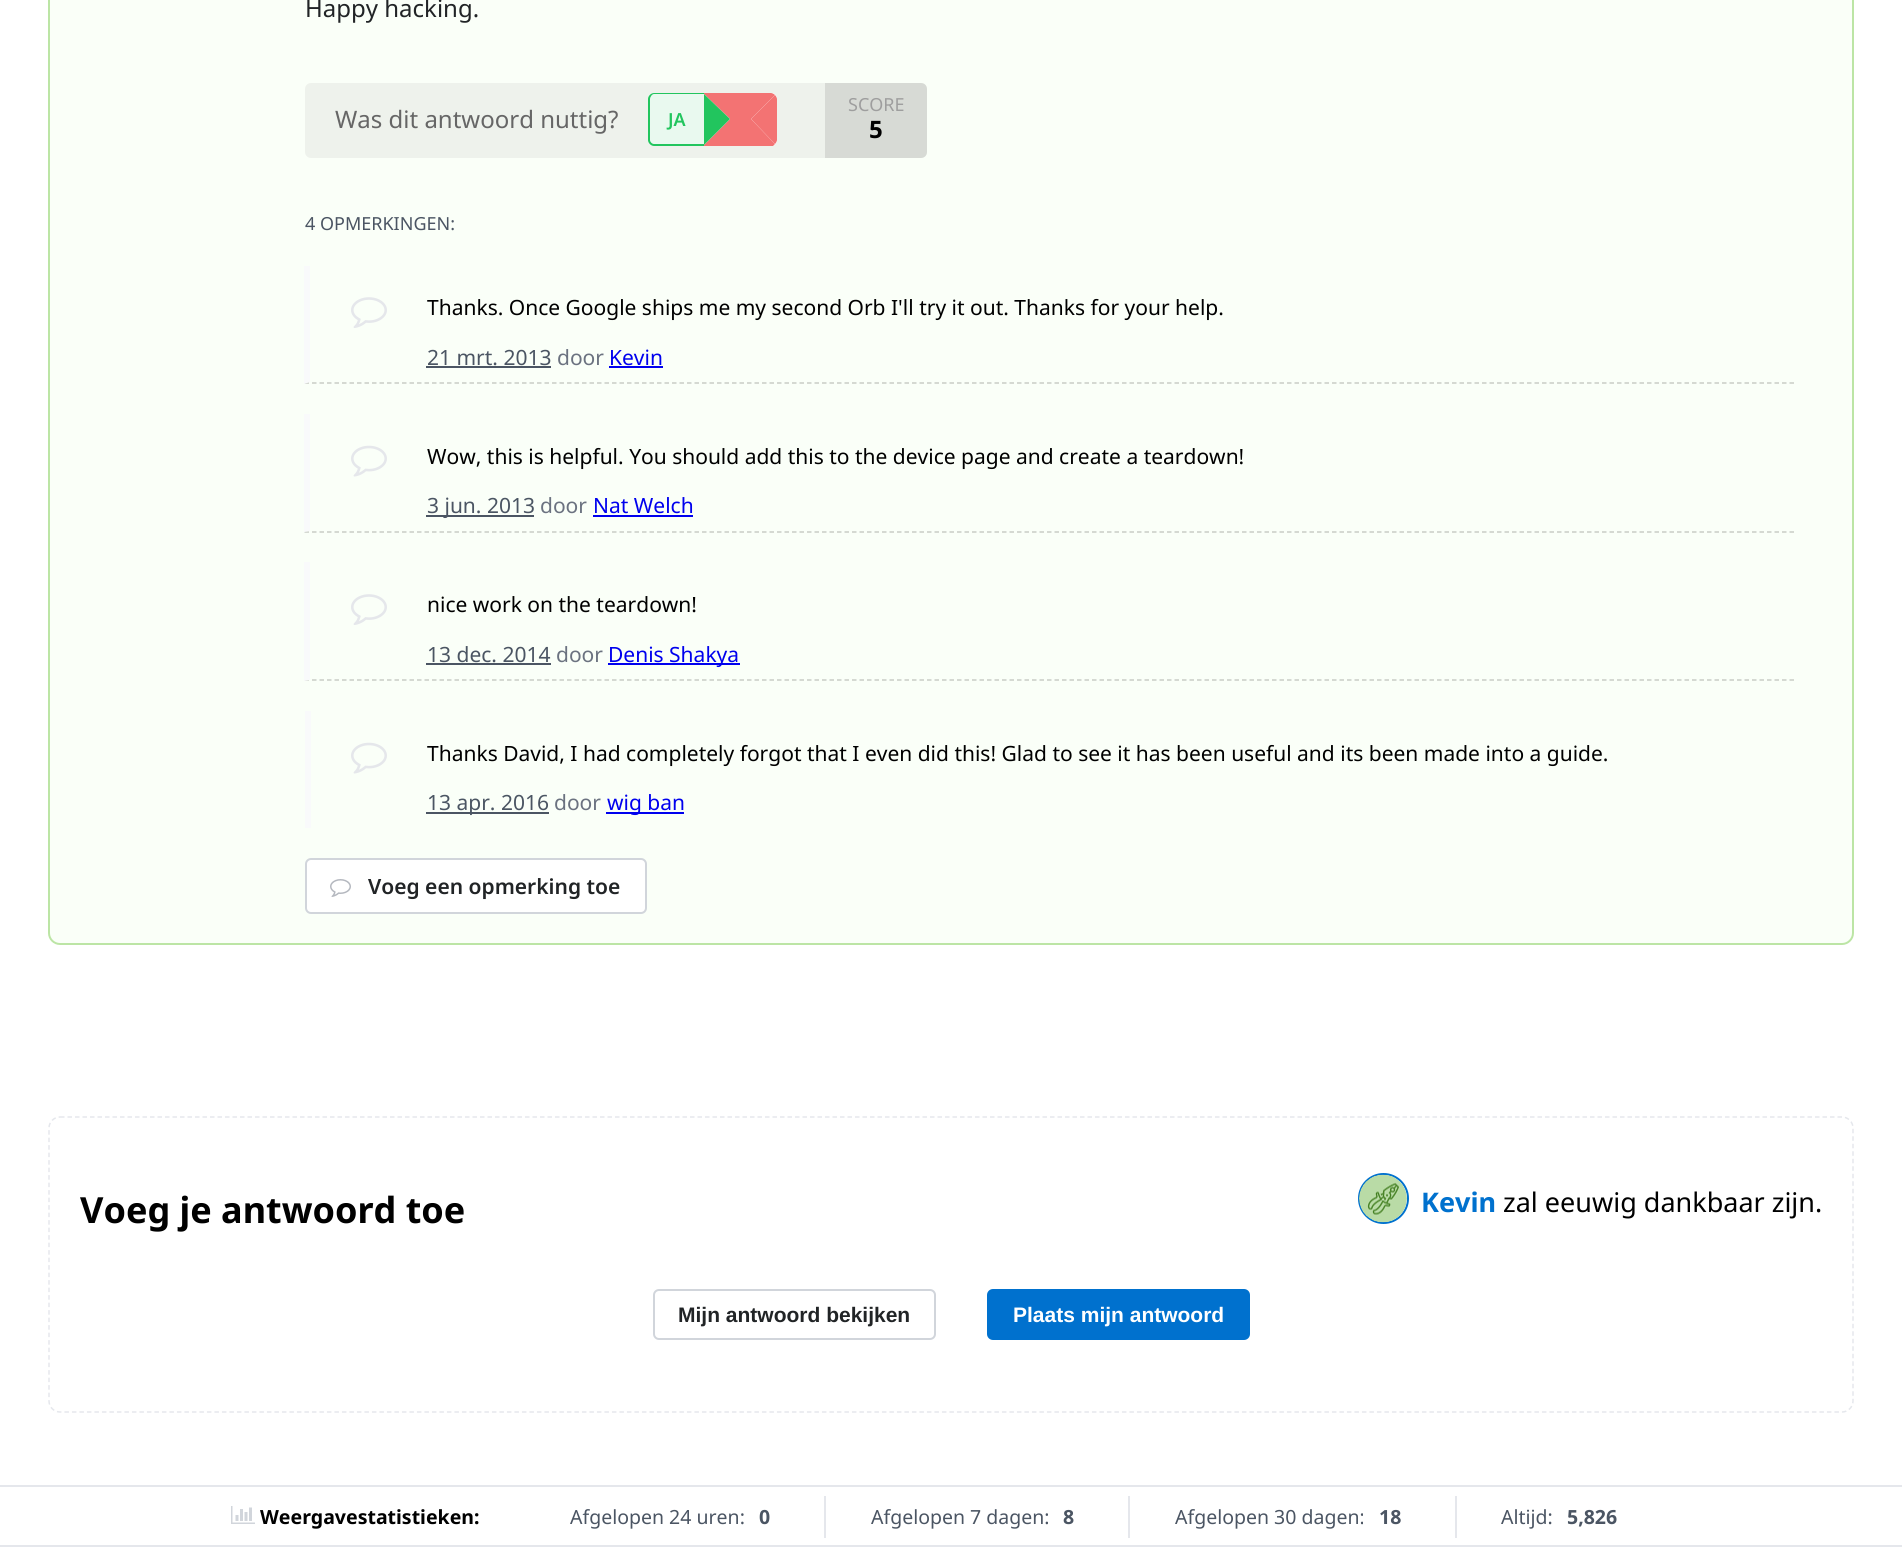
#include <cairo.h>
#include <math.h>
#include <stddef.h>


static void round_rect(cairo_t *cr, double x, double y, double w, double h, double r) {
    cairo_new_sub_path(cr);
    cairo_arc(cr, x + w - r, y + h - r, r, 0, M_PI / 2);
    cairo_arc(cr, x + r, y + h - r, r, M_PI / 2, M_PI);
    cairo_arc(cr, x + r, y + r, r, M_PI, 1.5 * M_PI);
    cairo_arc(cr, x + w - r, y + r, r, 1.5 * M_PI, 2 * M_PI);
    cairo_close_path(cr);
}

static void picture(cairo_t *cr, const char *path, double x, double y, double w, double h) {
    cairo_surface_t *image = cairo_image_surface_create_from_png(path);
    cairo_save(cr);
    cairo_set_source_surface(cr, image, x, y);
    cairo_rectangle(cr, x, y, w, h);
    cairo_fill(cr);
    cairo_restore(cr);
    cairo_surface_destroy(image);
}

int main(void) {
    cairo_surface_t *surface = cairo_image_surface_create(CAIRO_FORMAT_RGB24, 1902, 1557);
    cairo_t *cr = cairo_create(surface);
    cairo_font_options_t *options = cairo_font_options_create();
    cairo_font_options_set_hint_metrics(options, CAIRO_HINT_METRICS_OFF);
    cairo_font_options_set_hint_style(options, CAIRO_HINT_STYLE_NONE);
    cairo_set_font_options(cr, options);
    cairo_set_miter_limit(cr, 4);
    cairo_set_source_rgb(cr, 1, 1, 1);
    cairo_paint(cr);
    cairo_set_source_rgb(cr, 0.98, 1, 0.969);
    round_rect(cr, 49, -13, 1804, 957, 11);
    cairo_fill_preserve(cr);
    cairo_set_source_rgb(cr, 0.737, 0.898, 0.647);
    cairo_stroke(cr);
    cairo_select_font_face(cr, "Noto Sans", CAIRO_FONT_SLANT_NORMAL, CAIRO_FONT_WEIGHT_NORMAL);
    cairo_set_font_size(cr, 24);
    cairo_set_source_rgb(cr, 0.129, 0.141, 0.149);
    cairo_move_to(cr, 305, 17);
    cairo_show_text(cr, "Happy hacking.");
    cairo_set_source_rgb(cr, 0.933, 0.949, 0.922);
    round_rect(cr, 305, 83, 622, 75, 6);
    cairo_fill(cr);
    cairo_set_source_rgb(cr, 0.4, 0.4, 0.4);
    cairo_move_to(cr, 335, 128);
    cairo_show_text(cr, "Was dit antwoord nuttig?");
    cairo_set_source_rgb(cr, 0.914, 0.976, 0.937);
    cairo_new_path(cr);
    cairo_move_to(cr, 654, 93);
    cairo_line_to(cr, 704, 93);
    cairo_line_to(cr, 704, 146);
    cairo_line_to(cr, 654, 146);
    cairo_curve_to(cr, 650.5, 146, 648, 143.5, 648, 140);
    cairo_line_to(cr, 648, 99);
    cairo_curve_to(cr, 648, 95.5, 650.5, 93, 654, 93);
    cairo_close_path(cr);
    cairo_fill(cr);
    cairo_set_source_rgb(cr, 0.133, 0.773, 0.369);
    cairo_set_fill_rule(cr, CAIRO_FILL_RULE_EVEN_ODD);
    cairo_new_path(cr);
    cairo_move_to(cr, 654, 93);
    cairo_line_to(cr, 704, 93);
    cairo_line_to(cr, 704, 146);
    cairo_line_to(cr, 654, 146);
    cairo_curve_to(cr, 651, 146, 648, 143, 648, 140);
    cairo_line_to(cr, 648, 99);
    cairo_curve_to(cr, 648, 96, 651, 93, 654, 93);
    cairo_close_path(cr);
    cairo_move_to(cr, 654, 94);
    cairo_line_to(cr, 704, 94);
    cairo_line_to(cr, 704, 144);
    cairo_line_to(cr, 654, 144);
    cairo_curve_to(cr, 652, 144, 650, 142, 650, 140);
    cairo_line_to(cr, 650, 99);
    cairo_curve_to(cr, 650, 97, 652, 94, 654, 94);
    cairo_close_path(cr);
    cairo_fill(cr);
    cairo_select_font_face(cr, "Noto Sans SemiBold", CAIRO_FONT_SLANT_NORMAL, CAIRO_FONT_WEIGHT_NORMAL);
    cairo_set_font_size(cr, 18);
    cairo_move_to(cr, 668, 126);
    cairo_show_text(cr, "JA");
    cairo_set_source_rgb(cr, 1, 1, 1);
    cairo_new_path(cr);
    cairo_move_to(cr, 704, 93);
    cairo_line_to(cr, 771, 93);
    cairo_curve_to(cr, 774.5, 93, 777, 95.5, 777, 99);
    cairo_line_to(cr, 777, 140);
    cairo_curve_to(cr, 777, 143.5, 774.5, 146, 771, 146);
    cairo_line_to(cr, 704, 146);
    cairo_close_path(cr);
    cairo_fill(cr);
    cairo_set_source_rgb(cr, 0.953, 0.451, 0.451);
    cairo_set_fill_rule(cr, CAIRO_FILL_RULE_WINDING);
    cairo_new_path(cr);
    cairo_move_to(cr, 704, 93);
    cairo_line_to(cr, 771, 93);
    cairo_curve_to(cr, 772, 93, 774, 94, 775, 95);
    cairo_line_to(cr, 751, 119);
    cairo_line_to(cr, 730, 119);
    cairo_line_to(cr, 704, 94);
    cairo_close_path(cr);
    cairo_fill(cr);
    cairo_new_path(cr);
    cairo_move_to(cr, 775, 95);
    cairo_line_to(cr, 751, 119);
    cairo_line_to(cr, 775, 144);
    cairo_curve_to(cr, 776, 143, 777, 141, 777, 140);
    cairo_line_to(cr, 777, 99);
    cairo_curve_to(cr, 777, 98, 776, 96, 775, 95);
    cairo_close_path(cr);
    cairo_fill(cr);
    cairo_new_path(cr);
    cairo_move_to(cr, 775, 144);
    cairo_line_to(cr, 751, 119);
    cairo_line_to(cr, 730, 119);
    cairo_line_to(cr, 704, 145);
    cairo_line_to(cr, 704, 146);
    cairo_line_to(cr, 773, 146);
    cairo_close_path(cr);
    cairo_fill(cr);
    cairo_set_source_rgb(cr, 0.133, 0.773, 0.369);
    cairo_new_path(cr);
    cairo_move_to(cr, 704, 94);
    cairo_line_to(cr, 704, 145);
    cairo_line_to(cr, 730, 119);
    cairo_close_path(cr);
    cairo_fill(cr);
    cairo_set_source_rgba(cr, 0, 0, 0, 0.1);
    cairo_new_path(cr);
    cairo_move_to(cr, 825, 83);
    cairo_line_to(cr, 921, 83);
    cairo_curve_to(cr, 924.5, 83, 927, 85.5, 927, 89);
    cairo_line_to(cr, 927, 152);
    cairo_curve_to(cr, 927, 155.5, 924.5, 158, 921, 158);
    cairo_line_to(cr, 825, 158);
    cairo_close_path(cr);
    cairo_fill(cr);
    cairo_select_font_face(cr, "Noto Sans", CAIRO_FONT_SLANT_NORMAL, CAIRO_FONT_WEIGHT_NORMAL);
    cairo_set_source_rgb(cr, 0.62, 0.62, 0.62);
    cairo_move_to(cr, 848, 111);
    cairo_show_text(cr, "SCORE");
    cairo_select_font_face(cr, "Noto Sans", CAIRO_FONT_SLANT_NORMAL, CAIRO_FONT_WEIGHT_BOLD);
    cairo_set_font_size(cr, 24);
    cairo_set_source_rgb(cr, 0, 0, 0);
    cairo_move_to(cr, 869, 138);
    cairo_show_text(cr, "5");
    cairo_select_font_face(cr, "Noto Sans", CAIRO_FONT_SLANT_NORMAL, CAIRO_FONT_WEIGHT_NORMAL);
    cairo_set_font_size(cr, 18);
    cairo_set_source_rgb(cr, 0.294, 0.333, 0.388);
    cairo_move_to(cr, 305, 230);
    cairo_show_text(cr, "4 OPMERKINGEN:");
    cairo_new_path(cr);
    cairo_move_to(cr, 304.5, 383);
    cairo_line_to(cr, 1794, 383);
    cairo_set_source_rgb(cr, 0.784, 0.8, 0.776);
    cairo_set_line_width(cr, 1.5);
    cairo_set_dash(cr, (double[]){4.5, 3}, 2, 0);
    cairo_stroke(cr);
    cairo_set_source_rgb(cr, 0.976, 0.98, 0.984);
    cairo_new_path(cr);
    cairo_move_to(cr, 304, 384);
    cairo_line_to(cr, 304, 266);
    cairo_line_to(cr, 310, 266);
    cairo_line_to(cr, 310, 382);
    cairo_close_path(cr);
    cairo_fill(cr);
    picture(cr, "img1.png", 351, 297, 36, 31);
    cairo_set_font_size(cr, 21);
    cairo_set_source_rgb(cr, 0, 0, 0);
    cairo_move_to(cr, 427, 315);
    cairo_show_text(cr, "Thanks. Once Google ships me my second Orb I'll try it out. Thanks for your help.");
    cairo_set_source_rgb(cr, 0.294, 0.333, 0.388);
    cairo_move_to(cr, 427, 365);
    cairo_show_text(cr, "21 mrt. 2013");
    cairo_rectangle(cr, 426, 366, 125, 2);
    cairo_fill(cr);
    cairo_set_source_rgb(cr, 0.42, 0.447, 0.502);
    cairo_move_to(cr, 557, 365);
    cairo_show_text(cr, "door");
    cairo_set_source_rgb(cr, 0, 0, 0.933);
    cairo_move_to(cr, 609, 365);
    cairo_show_text(cr, "Kevin");
    cairo_rectangle(cr, 609, 366, 54, 2);
    cairo_fill(cr);
    cairo_new_path(cr);
    cairo_move_to(cr, 304.5, 532);
    cairo_line_to(cr, 1794, 532);
    cairo_set_source_rgb(cr, 0.784, 0.8, 0.776);
    cairo_stroke(cr);
    cairo_set_source_rgb(cr, 0.976, 0.98, 0.984);
    cairo_new_path(cr);
    cairo_move_to(cr, 304, 532);
    cairo_line_to(cr, 304, 414);
    cairo_line_to(cr, 310, 414);
    cairo_line_to(cr, 310, 531);
    cairo_close_path(cr);
    cairo_fill(cr);
    picture(cr, "img2.png", 351, 445, 36, 32);
    cairo_set_source_rgb(cr, 0, 0, 0);
    cairo_move_to(cr, 427, 464);
    cairo_show_text(cr, "Wow, this is helpful. You should add this to the device page and create a teardown!");
    cairo_set_source_rgb(cr, 0.294, 0.333, 0.388);
    cairo_rectangle(cr, 426, 515, 108, 2);
    cairo_fill(cr);
    cairo_move_to(cr, 427, 513);
    cairo_show_text(cr, "3 jun. 2013");
    cairo_set_source_rgb(cr, 0.42, 0.447, 0.502);
    cairo_move_to(cr, 540, 513);
    cairo_show_text(cr, "door");
    cairo_set_source_rgb(cr, 0, 0, 0.933);
    cairo_move_to(cr, 593, 513);
    cairo_show_text(cr, "Nat Welch");
    cairo_rectangle(cr, 593, 515, 100, 2);
    cairo_fill(cr);
    cairo_new_path(cr);
    cairo_move_to(cr, 304.5, 680);
    cairo_line_to(cr, 1794, 680);
    cairo_set_source_rgb(cr, 0.784, 0.8, 0.776);
    cairo_stroke(cr);
    cairo_set_source_rgb(cr, 0.976, 0.98, 0.984);
    cairo_new_path(cr);
    cairo_move_to(cr, 304, 681);
    cairo_line_to(cr, 304, 562);
    cairo_line_to(cr, 310, 562);
    cairo_line_to(cr, 310, 680);
    cairo_close_path(cr);
    cairo_fill(cr);
    picture(cr, "img1.png", 351, 594, 36, 31);
    cairo_set_source_rgb(cr, 0, 0, 0);
    cairo_move_to(cr, 427, 612);
    cairo_show_text(cr, "nice work on the teardown!");
    cairo_set_source_rgb(cr, 0.294, 0.333, 0.388);
    cairo_move_to(cr, 427, 662);
    cairo_show_text(cr, "13 dec. 2014");
    cairo_rectangle(cr, 426, 663, 125, 2);
    cairo_fill(cr);
    cairo_set_source_rgb(cr, 0.42, 0.447, 0.502);
    cairo_move_to(cr, 556, 662);
    cairo_show_text(cr, "door");
    cairo_set_source_rgb(cr, 0, 0, 0.933);
    cairo_rectangle(cr, 608, 663, 132, 2);
    cairo_fill(cr);
    cairo_move_to(cr, 608, 662);
    cairo_show_text(cr, "Denis Shakya");
    cairo_set_source_rgb(cr, 0.976, 0.98, 0.984);
    cairo_rectangle(cr, 305, 711, 6, 117);
    cairo_fill(cr);
    picture(cr, "img2.png", 351, 742, 36, 32);
    cairo_set_source_rgb(cr, 0, 0, 0);
    cairo_move_to(cr, 427, 761);
    cairo_show_text(cr, "Thanks David, I had completely forgot that I even did this! Glad to see it has been useful and its been made into a guide.");
    cairo_set_source_rgb(cr, 0.294, 0.333, 0.388);
    cairo_rectangle(cr, 426, 812, 123, 2);
    cairo_fill(cr);
    cairo_move_to(cr, 427, 810);
    cairo_show_text(cr, "13 apr. 2016");
    cairo_set_source_rgb(cr, 0.42, 0.447, 0.502);
    cairo_move_to(cr, 554, 810);
    cairo_show_text(cr, "door");
    cairo_set_source_rgb(cr, 0, 0, 0.933);
    cairo_rectangle(cr, 606, 812, 78, 2);
    cairo_fill(cr);
    cairo_move_to(cr, 607, 810);
    cairo_show_text(cr, "wig ban");
    cairo_set_source_rgb(cr, 1, 1, 1);
    round_rect(cr, 306, 859, 340, 54, 5);
    cairo_fill_preserve(cr);
    cairo_set_source_rgb(cr, 0.82, 0.835, 0.859);
    cairo_set_line_width(cr, 2);
    cairo_set_dash(cr, NULL, 0, 0);
    cairo_stroke(cr);
    picture(cr, "img3.png", 330, 879, 21, 18);
    cairo_select_font_face(cr, "Noto Sans SemiBold", CAIRO_FONT_SLANT_NORMAL, CAIRO_FONT_WEIGHT_NORMAL);
    cairo_set_source_rgb(cr, 0.129, 0.141, 0.149);
    cairo_move_to(cr, 368, 894);
    cairo_show_text(cr, "Voeg een opmerking toe");
    cairo_new_path(cr);
    cairo_move_to(cr, 60, 1117);
    cairo_line_to(cr, 1842, 1117);
    cairo_curve_to(cr, 1848, 1117, 1853, 1122, 1853, 1128);
    cairo_line_to(cr, 1853, 1401);
    cairo_curve_to(cr, 1853, 1407, 1848, 1412, 1842, 1412);
    cairo_line_to(cr, 60, 1412);
    cairo_curve_to(cr, 54, 1412, 49, 1407, 49, 1401);
    cairo_line_to(cr, 49, 1128);
    cairo_curve_to(cr, 49, 1122, 54, 1117, 60, 1117);
    cairo_close_path(cr);
    cairo_set_source_rgb(cr, 0.898, 0.906, 0.922);
    cairo_set_line_width(cr, 1.5);
    cairo_set_dash(cr, (double[]){4.5, 3}, 2, 0);
    cairo_stroke(cr);
    cairo_select_font_face(cr, "Noto Sans", CAIRO_FONT_SLANT_NORMAL, CAIRO_FONT_WEIGHT_BOLD);
    cairo_set_font_size(cr, 36);
    cairo_set_source_rgb(cr, 0, 0, 0);
    cairo_move_to(cr, 80, 1223);
    cairo_show_text(cr, "Voeg je antwoord toe");
    cairo_new_path(cr);
    cairo_arc(cr, 1383.5, 1198.5, 24.5, 0, 2 * M_PI);
    cairo_set_source_rgb(cr, 0, 0.443, 0.808);
    cairo_set_line_width(cr, 2);
    cairo_set_dash(cr, NULL, 0, 0);
    cairo_stroke(cr);
    picture(cr, "img4.png", 1359, 1174, 48, 49);
    cairo_set_font_size(cr, 27);
    cairo_move_to(cr, 1421, 1212);
    cairo_show_text(cr, "Kevin");
    cairo_select_font_face(cr, "Noto Sans", CAIRO_FONT_SLANT_NORMAL, CAIRO_FONT_WEIGHT_NORMAL);
    cairo_set_source_rgb(cr, 0, 0, 0);
    cairo_move_to(cr, 1503, 1212);
    cairo_show_text(cr, "zal eeuwig dankbaar zijn.");
    round_rect(cr, 654, 1290, 281, 49, 5);
    cairo_set_source_rgb(cr, 0.82, 0.835, 0.859);
    cairo_stroke(cr);
    cairo_select_font_face(cr, "Liberation Sans", CAIRO_FONT_SLANT_NORMAL, CAIRO_FONT_WEIGHT_BOLD);
    cairo_set_font_size(cr, 21);
    cairo_set_source_rgb(cr, 0.129, 0.141, 0.149);
    cairo_move_to(cr, 678, 1322);
    cairo_show_text(cr, "Mijn antwoord bekijken");
    cairo_set_source_rgb(cr, 0, 0.443, 0.808);
    round_rect(cr, 988, 1290, 261, 49, 5);
    cairo_fill_preserve(cr);
    cairo_stroke(cr);
    cairo_set_source_rgb(cr, 1, 1, 1);
    cairo_move_to(cr, 1013, 1322);
    cairo_show_text(cr, "Plaats mijn antwoord");
    cairo_set_source_rgb(cr, 0.898, 0.906, 0.922);
    cairo_rectangle(cr, 0, 1485, 1902, 2);
    cairo_fill(cr);
    cairo_rectangle(cr, 0, 1545, 1902, 2);
    cairo_fill(cr);
    picture(cr, "img5.png", 231, 1506, 24, 18);
    cairo_select_font_face(cr, "Noto Sans", CAIRO_FONT_SLANT_NORMAL, CAIRO_FONT_WEIGHT_BOLD);
    cairo_set_font_size(cr, 19.5);
    cairo_set_source_rgb(cr, 0, 0, 0);
    cairo_move_to(cr, 260, 1524);
    cairo_show_text(cr, "Weergavestatistieken:");
    cairo_set_source_rgb(cr, 0.898, 0.906, 0.922);
    cairo_rectangle(cr, 824, 1496, 2, 42);
    cairo_fill(cr);
    cairo_select_font_face(cr, "Noto Sans", CAIRO_FONT_SLANT_NORMAL, CAIRO_FONT_WEIGHT_NORMAL);
    cairo_set_source_rgb(cr, 0.294, 0.333, 0.388);
    cairo_move_to(cr, 570, 1524);
    cairo_show_text(cr, "Afgelopen 24 uren:");
    cairo_select_font_face(cr, "Noto Sans", CAIRO_FONT_SLANT_NORMAL, CAIRO_FONT_WEIGHT_BOLD);
    cairo_move_to(cr, 759, 1524);
    cairo_show_text(cr, "0");
    cairo_set_source_rgb(cr, 0.898, 0.906, 0.922);
    cairo_rectangle(cr, 1128, 1496, 2, 42);
    cairo_fill(cr);
    cairo_select_font_face(cr, "Noto Sans", CAIRO_FONT_SLANT_NORMAL, CAIRO_FONT_WEIGHT_NORMAL);
    cairo_set_source_rgb(cr, 0.294, 0.333, 0.388);
    cairo_move_to(cr, 871, 1524);
    cairo_show_text(cr, "Afgelopen 7 dagen:");
    cairo_select_font_face(cr, "Noto Sans", CAIRO_FONT_SLANT_NORMAL, CAIRO_FONT_WEIGHT_BOLD);
    cairo_move_to(cr, 1063, 1524);
    cairo_show_text(cr, "8");
    cairo_set_source_rgb(cr, 0.898, 0.906, 0.922);
    cairo_rectangle(cr, 1455, 1496, 2, 42);
    cairo_fill(cr);
    cairo_select_font_face(cr, "Noto Sans", CAIRO_FONT_SLANT_NORMAL, CAIRO_FONT_WEIGHT_NORMAL);
    cairo_set_source_rgb(cr, 0.294, 0.333, 0.388);
    cairo_move_to(cr, 1175, 1524);
    cairo_show_text(cr, "Afgelopen 30 dagen:");
    cairo_select_font_face(cr, "Noto Sans", CAIRO_FONT_SLANT_NORMAL, CAIRO_FONT_WEIGHT_BOLD);
    cairo_move_to(cr, 1379, 1524);
    cairo_show_text(cr, "18");
    cairo_select_font_face(cr, "Noto Sans", CAIRO_FONT_SLANT_NORMAL, CAIRO_FONT_WEIGHT_NORMAL);
    cairo_move_to(cr, 1501, 1524);
    cairo_show_text(cr, "Altijd:");
    cairo_select_font_face(cr, "Noto Sans", CAIRO_FONT_SLANT_NORMAL, CAIRO_FONT_WEIGHT_BOLD);
    cairo_move_to(cr, 1567, 1524);
    cairo_show_text(cr, "5,826");
    cairo_surface_write_to_png(surface, "page.png");
    cairo_font_options_destroy(options);
    cairo_destroy(cr);
    cairo_surface_destroy(surface);
    return 0;
}
